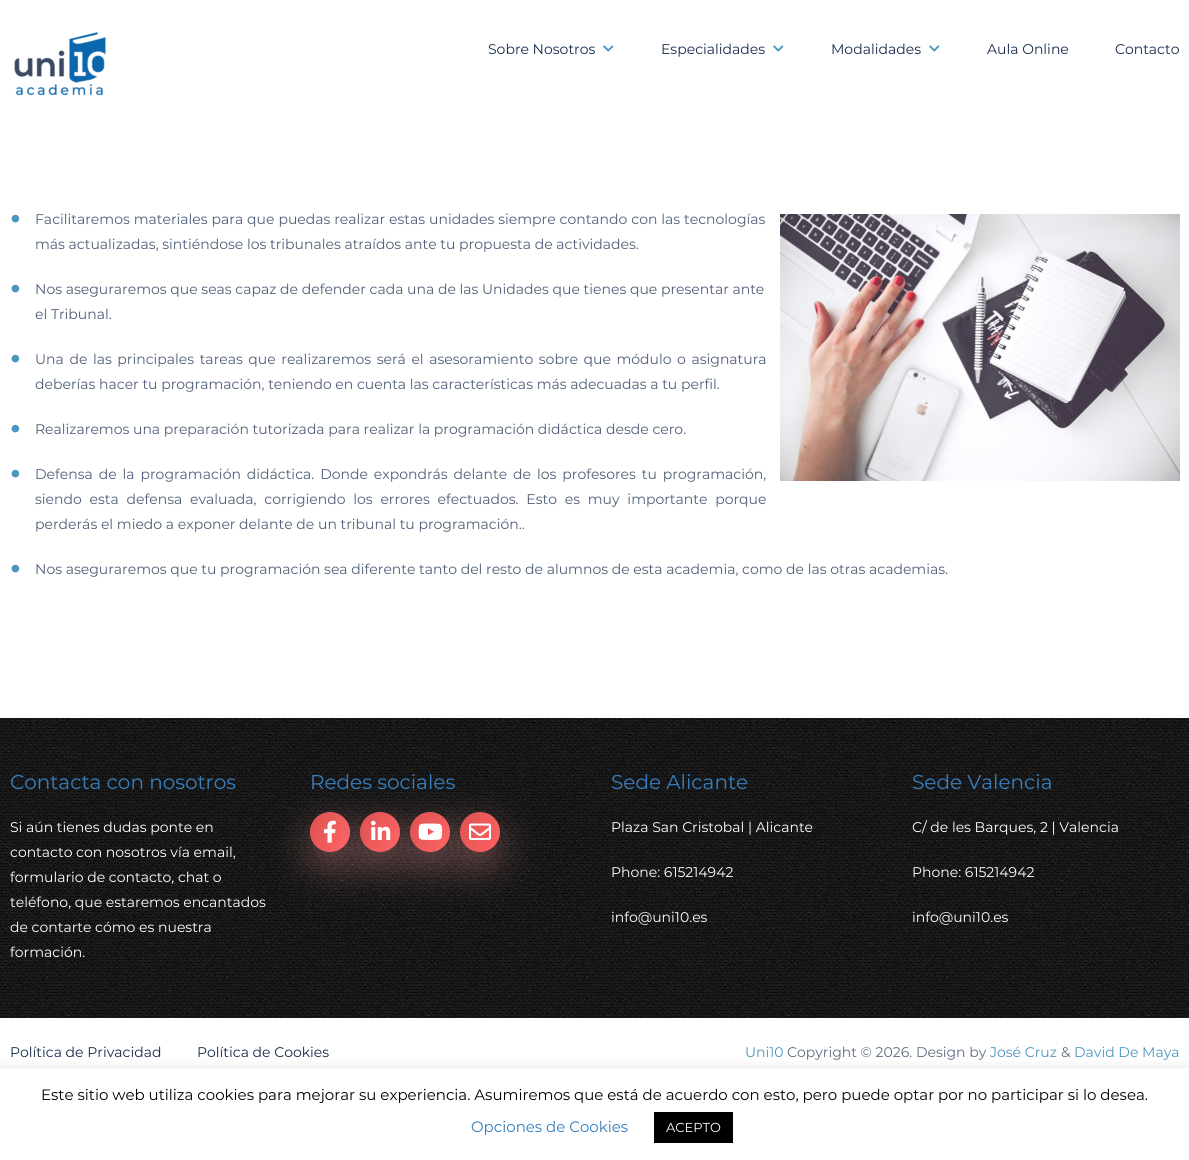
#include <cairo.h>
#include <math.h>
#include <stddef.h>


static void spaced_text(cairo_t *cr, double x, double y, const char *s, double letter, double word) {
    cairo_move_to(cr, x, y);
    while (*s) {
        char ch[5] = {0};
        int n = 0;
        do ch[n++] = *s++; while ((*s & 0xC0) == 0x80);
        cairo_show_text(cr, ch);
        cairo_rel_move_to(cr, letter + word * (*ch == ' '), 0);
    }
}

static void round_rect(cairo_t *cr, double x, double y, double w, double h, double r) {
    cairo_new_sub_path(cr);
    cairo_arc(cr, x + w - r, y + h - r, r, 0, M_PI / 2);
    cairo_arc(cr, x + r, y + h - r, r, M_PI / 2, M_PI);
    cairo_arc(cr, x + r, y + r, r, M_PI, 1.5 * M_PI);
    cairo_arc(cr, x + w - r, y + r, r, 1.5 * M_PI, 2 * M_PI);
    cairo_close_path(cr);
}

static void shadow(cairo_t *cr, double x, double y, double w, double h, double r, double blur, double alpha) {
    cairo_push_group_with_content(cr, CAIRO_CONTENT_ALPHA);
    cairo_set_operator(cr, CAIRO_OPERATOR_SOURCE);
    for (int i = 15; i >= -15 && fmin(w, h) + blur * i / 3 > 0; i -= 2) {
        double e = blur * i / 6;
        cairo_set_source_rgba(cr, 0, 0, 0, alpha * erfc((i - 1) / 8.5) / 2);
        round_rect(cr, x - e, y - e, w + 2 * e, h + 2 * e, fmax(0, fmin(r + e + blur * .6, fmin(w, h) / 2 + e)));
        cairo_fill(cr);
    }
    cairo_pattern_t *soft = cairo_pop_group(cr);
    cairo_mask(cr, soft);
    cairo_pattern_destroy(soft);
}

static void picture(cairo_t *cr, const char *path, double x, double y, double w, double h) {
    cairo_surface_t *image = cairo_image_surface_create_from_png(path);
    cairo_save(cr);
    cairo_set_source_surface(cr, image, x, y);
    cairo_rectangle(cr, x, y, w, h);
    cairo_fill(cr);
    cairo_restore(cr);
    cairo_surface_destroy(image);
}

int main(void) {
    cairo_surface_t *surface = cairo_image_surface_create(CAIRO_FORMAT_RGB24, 1189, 1160);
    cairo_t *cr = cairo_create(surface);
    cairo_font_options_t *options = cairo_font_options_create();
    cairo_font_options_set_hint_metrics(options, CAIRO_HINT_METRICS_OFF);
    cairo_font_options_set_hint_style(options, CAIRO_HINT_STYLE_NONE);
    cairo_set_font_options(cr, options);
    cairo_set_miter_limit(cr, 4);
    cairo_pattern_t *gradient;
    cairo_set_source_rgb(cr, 1, 1, 1);
    cairo_paint(cr);
    picture(cr, "img1.png", 14, 32, 92, 64);
    cairo_select_font_face(cr, "Montserrat", CAIRO_FONT_SLANT_NORMAL, CAIRO_FONT_WEIGHT_NORMAL);
    cairo_set_font_size(cr, 14);
    cairo_set_source_rgb(cr, 0.09, 0.169, 0.302);
    cairo_move_to(cr, 488, 54);
    cairo_show_text(cr, "Sobre Nosotros");
    picture(cr, "img2.png", 603, 45, 11, 7);
    cairo_move_to(cr, 661, 54);
    cairo_show_text(cr, "Especialidades");
    picture(cr, "img2.png", 773, 45, 11, 7);
    cairo_move_to(cr, 831, 54);
    cairo_show_text(cr, "Modalidades");
    picture(cr, "img2.png", 929, 45, 11, 7);
    cairo_move_to(cr, 987, 54);
    cairo_show_text(cr, "Aula Online");
    cairo_move_to(cr, 1115, 54);
    cairo_show_text(cr, "Contacto");
    cairo_select_font_face(cr, "Montserrat", CAIRO_FONT_SLANT_NORMAL, CAIRO_FONT_WEIGHT_BOLD);
    cairo_set_font_size(cr, 30);
    cairo_set_source_rgb(cr, 0.298, 0.584, 0.749);
    cairo_move_to(cr, 10, 227);
    cairo_show_text(cr, "•");
    cairo_select_font_face(cr, "Montserrat", CAIRO_FONT_SLANT_NORMAL, CAIRO_FONT_WEIGHT_NORMAL);
    cairo_set_font_size(cr, 14);
    cairo_set_source_rgb(cr, 0.314, 0.373, 0.475);
    spaced_text(cr, 35, 224, "Facilitaremos materiales para que puedas realizar estas unidades siempre contando con las tecnologías", 0, 0.25);
    cairo_move_to(cr, 35, 249);
    cairo_show_text(cr, "más actualizadas, sintiéndose los tribunales atraídos ante tu propuesta de actividades.");
    cairo_select_font_face(cr, "Montserrat", CAIRO_FONT_SLANT_NORMAL, CAIRO_FONT_WEIGHT_BOLD);
    cairo_set_font_size(cr, 30);
    cairo_set_source_rgb(cr, 0.298, 0.584, 0.749);
    cairo_move_to(cr, 10, 297);
    cairo_show_text(cr, "•");
    cairo_select_font_face(cr, "Montserrat", CAIRO_FONT_SLANT_NORMAL, CAIRO_FONT_WEIGHT_NORMAL);
    cairo_set_font_size(cr, 14);
    cairo_set_source_rgb(cr, 0.314, 0.373, 0.475);
    cairo_move_to(cr, 35, 294);
    cairo_show_text(cr, "Nos aseguraremos que seas capaz de defender cada una de las Unidades que tienes que presentar ante");
    cairo_move_to(cr, 35, 319);
    cairo_show_text(cr, "el Tribunal.");
    cairo_select_font_face(cr, "Montserrat", CAIRO_FONT_SLANT_NORMAL, CAIRO_FONT_WEIGHT_BOLD);
    cairo_set_font_size(cr, 30);
    cairo_set_source_rgb(cr, 0.298, 0.584, 0.749);
    cairo_move_to(cr, 10, 367);
    cairo_show_text(cr, "•");
    cairo_select_font_face(cr, "Montserrat", CAIRO_FONT_SLANT_NORMAL, CAIRO_FONT_WEIGHT_NORMAL);
    cairo_set_font_size(cr, 14);
    cairo_set_source_rgb(cr, 0.314, 0.373, 0.475);
    spaced_text(cr, 35, 364, "Una de las principales tareas que realizaremos será el asesoramiento sobre que módulo o asignatura", 0, 1.9);
    cairo_move_to(cr, 35, 389);
    cairo_show_text(cr, "deberías hacer tu programación, teniendo en cuenta las características más adecuadas a tu perfil.");
    cairo_select_font_face(cr, "Montserrat", CAIRO_FONT_SLANT_NORMAL, CAIRO_FONT_WEIGHT_BOLD);
    cairo_set_font_size(cr, 30);
    cairo_set_source_rgb(cr, 0.298, 0.584, 0.749);
    cairo_move_to(cr, 10, 437);
    cairo_show_text(cr, "•");
    cairo_select_font_face(cr, "Montserrat", CAIRO_FONT_SLANT_NORMAL, CAIRO_FONT_WEIGHT_NORMAL);
    cairo_set_font_size(cr, 14);
    cairo_set_source_rgb(cr, 0.314, 0.373, 0.475);
    cairo_move_to(cr, 35, 434);
    cairo_show_text(cr, "Realizaremos una preparación tutorizada para realizar la programación didáctica desde cero.");
    cairo_select_font_face(cr, "Montserrat", CAIRO_FONT_SLANT_NORMAL, CAIRO_FONT_WEIGHT_BOLD);
    cairo_set_font_size(cr, 30);
    cairo_set_source_rgb(cr, 0.298, 0.584, 0.749);
    cairo_move_to(cr, 10, 482);
    cairo_show_text(cr, "•");
    cairo_select_font_face(cr, "Montserrat", CAIRO_FONT_SLANT_NORMAL, CAIRO_FONT_WEIGHT_NORMAL);
    cairo_set_font_size(cr, 14);
    cairo_set_source_rgb(cr, 0.314, 0.373, 0.475);
    spaced_text(cr, 35, 479, "Defensa de la programación didáctica. Donde expondrás delante de los profesores tu programación,", 0, 2.25);
    spaced_text(cr, 35, 504, "siendo esta defensa evaluada, corrigiendo los errores efectuados. Esto es muy importante porque", 0, 4.1);
    cairo_move_to(cr, 35, 529);
    cairo_show_text(cr, "perderás el miedo a exponer delante de un tribunal tu programación..");
    cairo_select_font_face(cr, "Montserrat", CAIRO_FONT_SLANT_NORMAL, CAIRO_FONT_WEIGHT_BOLD);
    cairo_set_font_size(cr, 30);
    cairo_set_source_rgb(cr, 0.298, 0.584, 0.749);
    cairo_move_to(cr, 10, 577);
    cairo_show_text(cr, "•");
    cairo_select_font_face(cr, "Montserrat", CAIRO_FONT_SLANT_NORMAL, CAIRO_FONT_WEIGHT_NORMAL);
    cairo_set_font_size(cr, 14);
    cairo_set_source_rgb(cr, 0.314, 0.373, 0.475);
    cairo_move_to(cr, 35, 574);
    cairo_show_text(cr, "Nos aseguraremos que tu programación sea diferente tanto del resto de alumnos de esta academia, como de las otras academias.");
    picture(cr, "img3.png", 780, 214, 400, 267);
    picture(cr, "img4.png", 0, 718, 1189, 300);
    cairo_set_font_size(cr, 20);
    cairo_set_source_rgb(cr, 0.216, 0.498, 0.749);
    cairo_move_to(cr, 10, 789);
    cairo_show_text(cr, "Contacta con nosotros");
    cairo_set_font_size(cr, 14);
    cairo_set_source_rgb(cr, 1, 1, 1);
    cairo_move_to(cr, 10, 832);
    cairo_show_text(cr, "Si aún tienes dudas ponte en");
    cairo_move_to(cr, 10, 857);
    cairo_show_text(cr, "contacto con nosotros vía email,");
    cairo_move_to(cr, 10, 882);
    cairo_show_text(cr, "formulario de contacto, chat o");
    cairo_move_to(cr, 10, 907);
    cairo_show_text(cr, "teléfono, que estaremos encantados");
    cairo_move_to(cr, 10, 932);
    cairo_show_text(cr, "de contarte cómo es nuestra");
    cairo_move_to(cr, 10, 957);
    cairo_show_text(cr, "formación.");
    cairo_set_source_rgb(cr, 1, 0.627, 0.627);
    shadow(cr, 310, 827, 40, 40, 20, 20, 0.3);
    gradient = cairo_pattern_create_linear(354, 846, 306, 818);
    cairo_pattern_add_color_stop_rgba(gradient, 0, 1, 0.384, 0.384, 1);
    cairo_pattern_add_color_stop_rgba(gradient, 1, 0.867, 0.322, 0.322, 1);
    cairo_set_source(cr, gradient);
    cairo_pattern_destroy(gradient);
    cairo_arc(cr, 330, 832, 20, 0, 2 * M_PI);
    cairo_fill(cr);
    picture(cr, "img5.png", 324, 820, 12, 23);
    cairo_set_source_rgb(cr, 1, 0.627, 0.627);
    shadow(cr, 360, 827, 40, 40, 20, 20, 0.3);
    gradient = cairo_pattern_create_linear(404, 846, 356, 818);
    cairo_pattern_add_color_stop_rgba(gradient, 0, 1, 0.384, 0.384, 1);
    cairo_pattern_add_color_stop_rgba(gradient, 1, 0.867, 0.322, 0.322, 1);
    cairo_set_source(cr, gradient);
    cairo_pattern_destroy(gradient);
    cairo_arc(cr, 380, 832, 20, 0, 2 * M_PI);
    cairo_fill(cr);
    picture(cr, "img6.png", 371, 820, 20, 20);
    cairo_set_source_rgb(cr, 1, 0.627, 0.627);
    shadow(cr, 410, 827, 40, 40, 20, 20, 0.3);
    gradient = cairo_pattern_create_linear(454, 846, 406, 818);
    cairo_pattern_add_color_stop_rgba(gradient, 0, 1, 0.384, 0.384, 1);
    cairo_pattern_add_color_stop_rgba(gradient, 1, 0.867, 0.322, 0.322, 1);
    cairo_set_source(cr, gradient);
    cairo_pattern_destroy(gradient);
    cairo_arc(cr, 430, 832, 20, 0, 2 * M_PI);
    cairo_fill(cr);
    picture(cr, "img7.png", 418, 823, 25, 17);
    cairo_set_source_rgb(cr, 1, 0.627, 0.627);
    shadow(cr, 460, 827, 40, 40, 20, 20, 0.3);
    gradient = cairo_pattern_create_linear(504, 846, 456, 818);
    cairo_pattern_add_color_stop_rgba(gradient, 0, 1, 0.384, 0.384, 1);
    cairo_pattern_add_color_stop_rgba(gradient, 1, 0.867, 0.322, 0.322, 1);
    cairo_set_source(cr, gradient);
    cairo_pattern_destroy(gradient);
    cairo_arc(cr, 480, 832, 20, 0, 2 * M_PI);
    cairo_fill(cr);
    picture(cr, "img8.png", 469, 823, 22, 17);
    cairo_set_font_size(cr, 20);
    cairo_set_source_rgb(cr, 0.216, 0.498, 0.749);
    cairo_move_to(cr, 310, 789);
    cairo_show_text(cr, "Redes sociales");
    cairo_move_to(cr, 611, 789);
    cairo_show_text(cr, "Sede Alicante");
    cairo_set_font_size(cr, 14);
    cairo_set_source_rgb(cr, 1, 1, 1);
    cairo_move_to(cr, 611, 832);
    cairo_show_text(cr, "Plaza San Cristobal | Alicante");
    cairo_move_to(cr, 611, 877);
    cairo_show_text(cr, "Phone: 615214942");
    cairo_move_to(cr, 611, 922);
    cairo_show_text(cr, "info@uni10.es");
    cairo_set_font_size(cr, 20);
    cairo_set_source_rgb(cr, 0.216, 0.498, 0.749);
    cairo_move_to(cr, 912, 789);
    cairo_show_text(cr, "Sede Valencia");
    cairo_set_font_size(cr, 14);
    cairo_set_source_rgb(cr, 1, 1, 1);
    cairo_move_to(cr, 912, 832);
    cairo_show_text(cr, "C/ de les Barques, 2 | Valencia");
    cairo_move_to(cr, 912, 877);
    cairo_show_text(cr, "Phone: 615214942");
    cairo_move_to(cr, 912, 922);
    cairo_show_text(cr, "info@uni10.es");
    cairo_set_source_rgb(cr, 0.09, 0.169, 0.302);
    cairo_move_to(cr, 10, 1057);
    cairo_show_text(cr, "Política de Privacidad");
    cairo_move_to(cr, 197, 1057);
    cairo_show_text(cr, "Política de Cookies");
    cairo_set_source_rgb(cr, 0.298, 0.584, 0.749);
    cairo_move_to(cr, 745, 1057);
    cairo_show_text(cr, "Uni10");
    cairo_set_source_rgb(cr, 0.369, 0.424, 0.518);
    cairo_move_to(cr, 787, 1057);
    cairo_show_text(cr, "Copyright © 2026. Design by");
    cairo_set_source_rgb(cr, 0.298, 0.584, 0.749);
    cairo_move_to(cr, 990, 1057);
    cairo_show_text(cr, "José Cruz");
    cairo_set_source_rgb(cr, 0.369, 0.424, 0.518);
    cairo_move_to(cr, 1061, 1057);
    cairo_show_text(cr, "&");
    cairo_set_source_rgb(cr, 0.298, 0.584, 0.749);
    cairo_move_to(cr, 1074, 1057);
    cairo_show_text(cr, "David De Maya");
    cairo_set_source_rgb(cr, 0.675, 0.671, 0.671);
    shadow(cr, 0, 1067, 1189, 92, 0, 5, 0.3);
    cairo_set_source_rgb(cr, 1, 1, 1);
    cairo_rectangle(cr, 0, 1068, 1189, 92);
    cairo_fill(cr);
    cairo_set_font_size(cr, 15);
    cairo_set_source_rgb(cr, 0, 0, 0);
    cairo_move_to(cr, 41, 1100);
    cairo_show_text(cr, "Este sitio web utiliza cookies para mejorar su experiencia. Asumiremos que está de acuerdo con esto, pero puede optar por no participar si lo desea.");
    cairo_set_source_rgb(cr, 0.192, 0.49, 0.749);
    cairo_move_to(cr, 471, 1132);
    cairo_show_text(cr, "Opciones de Cookies");
    cairo_set_source_rgb(cr, 0, 0, 0);
    cairo_rectangle(cr, 654, 1112, 79, 31);
    cairo_fill(cr);
    cairo_set_font_size(cr, 13);
    cairo_set_source_rgb(cr, 1, 1, 1);
    cairo_move_to(cr, 666, 1132);
    cairo_show_text(cr, "ACEPTO");
    cairo_surface_write_to_png(surface, "page.png");
    cairo_font_options_destroy(options);
    cairo_destroy(cr);
    cairo_surface_destroy(surface);
    return 0;
}
